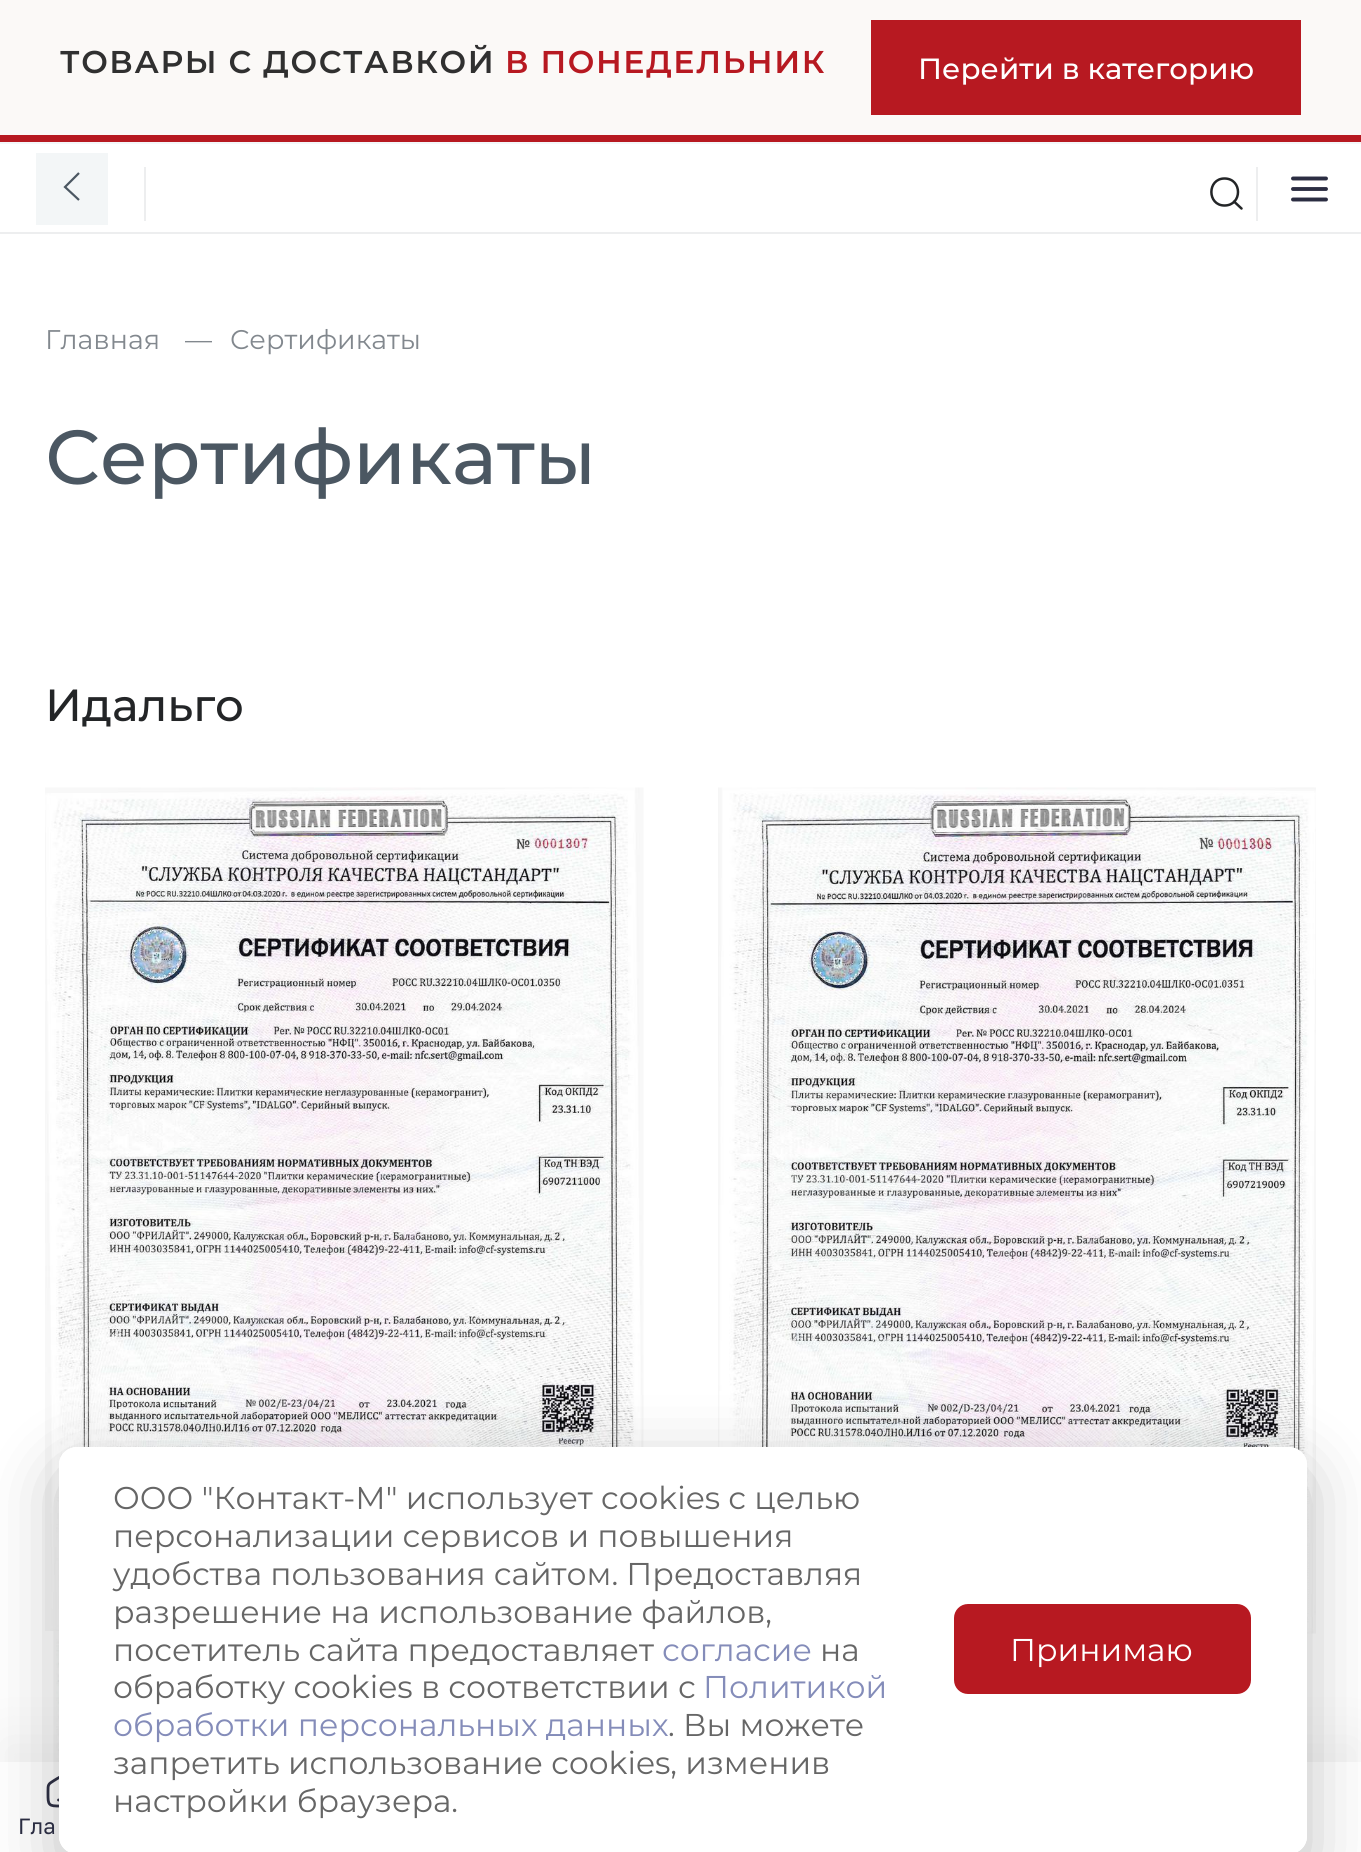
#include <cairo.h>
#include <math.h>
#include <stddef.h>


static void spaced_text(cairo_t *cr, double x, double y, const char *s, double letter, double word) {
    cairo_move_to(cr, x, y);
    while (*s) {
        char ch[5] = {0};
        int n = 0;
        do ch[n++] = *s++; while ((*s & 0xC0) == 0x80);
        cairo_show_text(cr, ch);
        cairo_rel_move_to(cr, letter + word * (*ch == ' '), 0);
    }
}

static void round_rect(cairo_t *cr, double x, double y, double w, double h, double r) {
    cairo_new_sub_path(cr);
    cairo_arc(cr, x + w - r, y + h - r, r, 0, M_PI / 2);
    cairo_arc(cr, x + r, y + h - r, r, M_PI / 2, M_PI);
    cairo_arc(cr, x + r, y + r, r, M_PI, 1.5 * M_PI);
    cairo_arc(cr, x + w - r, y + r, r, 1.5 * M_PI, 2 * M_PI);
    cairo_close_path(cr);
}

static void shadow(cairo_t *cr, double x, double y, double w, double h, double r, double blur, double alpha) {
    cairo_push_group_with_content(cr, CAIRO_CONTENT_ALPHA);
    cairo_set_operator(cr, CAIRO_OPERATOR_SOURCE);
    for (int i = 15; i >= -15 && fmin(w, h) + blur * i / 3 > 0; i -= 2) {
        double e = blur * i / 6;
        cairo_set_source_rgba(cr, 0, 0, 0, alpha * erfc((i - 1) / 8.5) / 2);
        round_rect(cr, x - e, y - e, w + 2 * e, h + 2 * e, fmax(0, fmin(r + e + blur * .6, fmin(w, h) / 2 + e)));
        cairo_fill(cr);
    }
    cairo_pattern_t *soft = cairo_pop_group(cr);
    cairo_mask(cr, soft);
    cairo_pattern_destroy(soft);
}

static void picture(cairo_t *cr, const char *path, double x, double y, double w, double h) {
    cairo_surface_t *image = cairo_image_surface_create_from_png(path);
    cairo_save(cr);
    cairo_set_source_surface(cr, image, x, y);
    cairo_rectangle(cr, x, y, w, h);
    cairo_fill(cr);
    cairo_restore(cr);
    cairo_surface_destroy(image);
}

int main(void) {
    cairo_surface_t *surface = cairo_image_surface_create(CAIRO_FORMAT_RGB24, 1361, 1852);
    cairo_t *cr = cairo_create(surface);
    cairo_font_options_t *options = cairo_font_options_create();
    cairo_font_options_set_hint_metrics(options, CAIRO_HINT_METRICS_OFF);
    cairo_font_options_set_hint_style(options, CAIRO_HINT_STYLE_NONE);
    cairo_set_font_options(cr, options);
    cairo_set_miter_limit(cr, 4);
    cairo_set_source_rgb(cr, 1, 1, 1);
    cairo_paint(cr);
    cairo_set_source_rgb(cr, 0.984, 0.976, 0.965);
    cairo_rectangle(cr, 0, 0, 1361, 135);
    cairo_fill(cr);
    cairo_set_source_rgb(cr, 0.718, 0.098, 0.129);
    cairo_rectangle(cr, 0, 135, 1361, 7);
    cairo_fill(cr);
    cairo_select_font_face(cr, "Montserrat SemiBold", CAIRO_FONT_SLANT_NORMAL, CAIRO_FONT_WEIGHT_NORMAL);
    cairo_set_font_size(cr, 31.5);
    cairo_set_source_rgb(cr, 0.188, 0.188, 0.188);
    spaced_text(cr, 60, 73, "ТОВАРЫ С ДОСТАВКОЙ", 1.6, 0);
    cairo_set_source_rgb(cr, 0.718, 0.098, 0.129);
    spaced_text(cr, 505, 73, "В ПОНЕДЕЛЬНИК", 1.6, 0);
    cairo_rectangle(cr, 871, 20, 430, 95);
    cairo_fill(cr);
    cairo_select_font_face(cr, "Montserrat Medium", CAIRO_FONT_SLANT_NORMAL, CAIRO_FONT_WEIGHT_NORMAL);
    cairo_set_font_size(cr, 29.25);
    cairo_set_source_rgb(cr, 1, 1, 1);
    cairo_move_to(cr, 918, 79);
    cairo_show_text(cr, "Перейти в категорию");
    cairo_set_source_rgb(cr, 0.953, 0.965, 0.976);
    cairo_rectangle(cr, 0, 142, 1361, 2);
    cairo_fill(cr);
    cairo_set_source_rgb(cr, 0.929, 0.933, 0.937);
    cairo_rectangle(cr, 0, 232, 1361, 2);
    cairo_fill(cr);
    cairo_set_source_rgb(cr, 0.953, 0.961, 0.965);
    cairo_rectangle(cr, 36, 153, 72, 72);
    cairo_fill(cr);
    cairo_new_path(cr);
    cairo_move_to(cr, 79, 173);
    cairo_line_to(cr, 65, 187);
    cairo_line_to(cr, 79, 200);
    cairo_set_source_rgb(cr, 0.294, 0.341, 0.384);
    cairo_set_line_width(cr, 2.2);
    cairo_stroke(cr);
    cairo_set_source_rgb(cr, 0.929, 0.933, 0.937);
    cairo_rectangle(cr, 1256, 167, 2, 54);
    cairo_fill(cr);
    cairo_rectangle(cr, 144, 167, 2, 54);
    cairo_fill(cr);
    cairo_new_path(cr);
    cairo_move_to(cr, 1224.5, 205.5);
    cairo_curve_to(cr, 1242.5, 205.5, 1242.5, 178.5, 1224.5, 178.5);
    cairo_curve_to(cr, 1207, 178.5, 1207, 205.5, 1224.5, 205.5);
    cairo_close_path(cr);
    cairo_move_to(cr, 1241.5, 208.5);
    cairo_line_to(cr, 1234, 201.5);
    cairo_set_source_rgb(cr, 0.137, 0.145, 0.153);
    cairo_set_line_width(cr, 2.5);
    cairo_set_line_cap(cr, CAIRO_LINE_CAP_ROUND);
    cairo_set_line_join(cr, CAIRO_LINE_JOIN_ROUND);
    cairo_stroke(cr);
    cairo_new_path(cr);
    cairo_move_to(cr, 1326, 178.5);
    cairo_line_to(cr, 1293, 178.5);
    cairo_move_to(cr, 1326, 189);
    cairo_line_to(cr, 1293, 189);
    cairo_move_to(cr, 1326, 199.5);
    cairo_line_to(cr, 1293, 199.5);
    cairo_set_source_rgb(cr, 0.169, 0.176, 0.259);
    cairo_set_line_width(cr, 3.9);
    cairo_set_line_join(cr, CAIRO_LINE_JOIN_MITER);
    cairo_stroke(cr);
    cairo_select_font_face(cr, "Montserrat", CAIRO_FONT_SLANT_NORMAL, CAIRO_FONT_WEIGHT_NORMAL);
    cairo_set_font_size(cr, 27);
    cairo_set_source_rgb(cr, 0.51, 0.533, 0.557);
    cairo_move_to(cr, 45, 349);
    cairo_show_text(cr, "Главная");
    cairo_move_to(cr, 185, 349);
    cairo_show_text(cr, "—");
    cairo_move_to(cr, 230, 349);
    cairo_show_text(cr, "Сертификаты");
    cairo_select_font_face(cr, "Montserrat Medium", CAIRO_FONT_SLANT_NORMAL, CAIRO_FONT_WEIGHT_NORMAL);
    cairo_set_font_size(cr, 76.5);
    cairo_set_source_rgb(cr, 0.294, 0.341, 0.384);
    cairo_move_to(cr, 45, 484);
    cairo_show_text(cr, "Сертификаты");
    cairo_set_font_size(cr, 45);
    cairo_set_source_rgb(cr, 0.137, 0.145, 0.153);
    cairo_move_to(cr, 45, 721);
    cairo_show_text(cr, "Идальго");
    picture(cr, "img1.png", 45, 787, 599, 844);
    picture(cr, "img2.png", 718, 787, 598, 847);
    picture(cr, "img3.png", 56, 1639, 3, 123);
    cairo_set_source_rgb(cr, 0, 0, 0);
    shadow(cr, 0, 1739, 1361, 93, 0, 28, 0.05);
    cairo_set_source_rgb(cr, 1, 1, 1);
    cairo_rectangle(cr, 0, 1762, 1361, 90);
    cairo_fill(cr);
    picture(cr, "img4.png", 46, 1776, 13, 32);
    cairo_save(cr);
    cairo_set_fill_rule(cr, CAIRO_FILL_RULE_EVEN_ODD);
    cairo_new_path(cr);
    cairo_move_to(cr, 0, 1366);
    cairo_line_to(cr, 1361, 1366);
    cairo_line_to(cr, 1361, 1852);
    cairo_line_to(cr, 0, 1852);
    cairo_close_path(cr);
    cairo_move_to(cr, 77, 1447);
    cairo_line_to(cr, 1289, 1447);
    cairo_curve_to(cr, 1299, 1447, 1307, 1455, 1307, 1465);
    cairo_line_to(cr, 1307, 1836);
    cairo_curve_to(cr, 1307, 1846, 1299, 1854, 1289, 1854);
    cairo_line_to(cr, 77, 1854);
    cairo_curve_to(cr, 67, 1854, 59, 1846, 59, 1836);
    cairo_line_to(cr, 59, 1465);
    cairo_curve_to(cr, 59, 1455, 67, 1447, 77, 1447);
    cairo_close_path(cr);
    cairo_clip(cr);
    cairo_set_source_rgb(cr, 0.157, 0.157, 0.157);
    shadow(cr, 59, 1469, 1248, 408, 18, 34, 0.3);
    cairo_restore(cr);
    round_rect(cr, 59, 1447, 1248, 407, 18);
    cairo_fill(cr);
    cairo_select_font_face(cr, "Montserrat", CAIRO_FONT_SLANT_NORMAL, CAIRO_FONT_WEIGHT_NORMAL);
    cairo_set_font_size(cr, 31.5);
    cairo_set_source_rgb(cr, 0.4, 0.4, 0.4);
    cairo_move_to(cr, 113, 1509);
    cairo_show_text(cr, "ООО \"Контакт-М\" использует cookies с целью");
    cairo_move_to(cr, 113, 1547);
    cairo_show_text(cr, "персонализации сервисов и повышения");
    cairo_move_to(cr, 113, 1585);
    cairo_show_text(cr, "удобства пользования сайтом. Предоставляя");
    cairo_move_to(cr, 113, 1623);
    cairo_show_text(cr, "разрешение на использование файлов,");
    cairo_move_to(cr, 113, 1661);
    cairo_show_text(cr, "посетитель сайта предоставляет");
    cairo_set_source_rgb(cr, 0.518, 0.549, 0.725);
    cairo_move_to(cr, 662, 1661);
    cairo_show_text(cr, "согласие");
    cairo_set_source_rgb(cr, 0.4, 0.4, 0.4);
    cairo_move_to(cr, 820, 1661);
    cairo_show_text(cr, "на");
    cairo_move_to(cr, 113, 1698);
    cairo_show_text(cr, "обработку cookies в соответствии с");
    cairo_set_source_rgb(cr, 0.518, 0.549, 0.725);
    cairo_move_to(cr, 703, 1698);
    cairo_show_text(cr, "Политикой");
    cairo_move_to(cr, 113, 1736);
    cairo_show_text(cr, "обработки персональных данных");
    cairo_set_source_rgb(cr, 0.4, 0.4, 0.4);
    cairo_move_to(cr, 668, 1736);
    cairo_show_text(cr, ". Вы можете");
    cairo_move_to(cr, 113, 1774);
    cairo_show_text(cr, "запретить использование cookies, изменив");
    cairo_move_to(cr, 113, 1812);
    cairo_show_text(cr, "настройки браузера.");
    cairo_set_source_rgb(cr, 0.718, 0.098, 0.129);
    round_rect(cr, 955, 1605, 295, 88, 13);
    cairo_fill_preserve(cr);
    cairo_set_line_width(cr, 2);
    cairo_set_line_cap(cr, CAIRO_LINE_CAP_BUTT);
    cairo_stroke(cr);
    cairo_set_source_rgb(cr, 1, 1, 1);
    cairo_move_to(cr, 1010, 1661);
    cairo_show_text(cr, "Принимаю");
    cairo_select_font_face(cr, "Golos Text", CAIRO_FONT_SLANT_NORMAL, CAIRO_FONT_WEIGHT_NORMAL);
    cairo_set_font_size(cr, 22);
    cairo_set_source_rgb(cr, 0.169, 0.176, 0.259);
    cairo_move_to(cr, 18, 1834);
    cairo_show_text(cr, "Гла");
    cairo_surface_write_to_png(surface, "page.png");
    cairo_font_options_destroy(options);
    cairo_destroy(cr);
    cairo_surface_destroy(surface);
    return 0;
}
